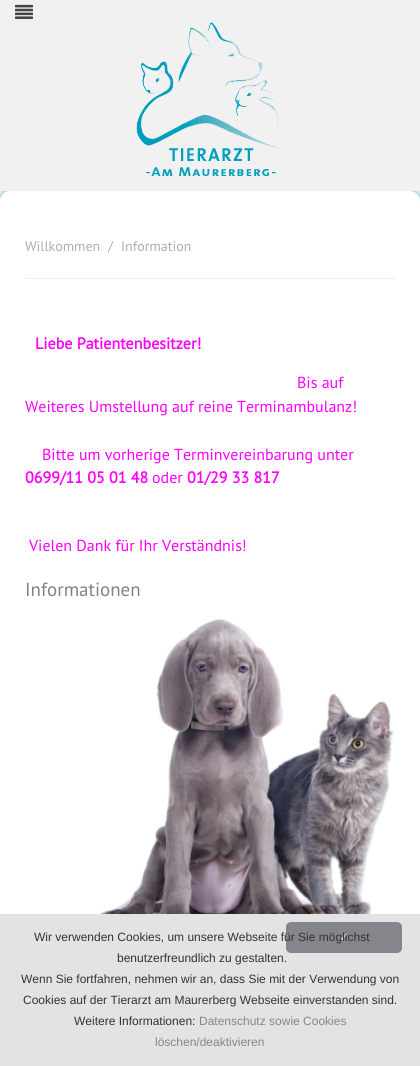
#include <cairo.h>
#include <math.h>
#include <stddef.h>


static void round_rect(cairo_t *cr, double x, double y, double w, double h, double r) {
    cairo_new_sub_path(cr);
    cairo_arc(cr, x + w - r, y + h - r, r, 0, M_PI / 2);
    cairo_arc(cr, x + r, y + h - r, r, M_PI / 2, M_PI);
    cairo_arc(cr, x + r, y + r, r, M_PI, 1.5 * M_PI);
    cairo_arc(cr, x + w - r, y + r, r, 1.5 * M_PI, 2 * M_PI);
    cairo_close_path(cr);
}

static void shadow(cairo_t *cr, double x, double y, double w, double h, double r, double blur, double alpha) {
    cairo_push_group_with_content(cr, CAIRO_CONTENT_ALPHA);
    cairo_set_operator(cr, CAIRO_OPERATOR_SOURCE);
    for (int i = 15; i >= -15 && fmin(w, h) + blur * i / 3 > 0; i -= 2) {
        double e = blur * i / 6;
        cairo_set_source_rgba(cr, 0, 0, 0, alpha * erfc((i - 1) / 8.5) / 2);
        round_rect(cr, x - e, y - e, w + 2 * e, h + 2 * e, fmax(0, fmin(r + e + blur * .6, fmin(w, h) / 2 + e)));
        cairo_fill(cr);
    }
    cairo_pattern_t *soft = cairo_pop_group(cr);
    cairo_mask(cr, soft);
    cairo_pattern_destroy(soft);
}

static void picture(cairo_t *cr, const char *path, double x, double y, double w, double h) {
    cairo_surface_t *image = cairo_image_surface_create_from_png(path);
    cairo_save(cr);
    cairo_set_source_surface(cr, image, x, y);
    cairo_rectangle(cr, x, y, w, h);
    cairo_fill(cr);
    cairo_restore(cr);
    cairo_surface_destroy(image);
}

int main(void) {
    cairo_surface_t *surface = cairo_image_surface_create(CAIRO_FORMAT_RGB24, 420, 1066);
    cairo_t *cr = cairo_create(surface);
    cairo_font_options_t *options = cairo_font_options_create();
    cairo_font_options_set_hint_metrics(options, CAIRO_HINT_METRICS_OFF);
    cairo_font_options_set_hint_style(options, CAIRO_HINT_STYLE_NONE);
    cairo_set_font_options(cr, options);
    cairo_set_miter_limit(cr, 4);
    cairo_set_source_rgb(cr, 0.961, 0.961, 0.961);
    cairo_paint(cr);
    cairo_set_source_rgb(cr, 0.176, 0.616, 0.729);
    shadow(cr, 0, 191, 420, 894, 10, 3, 1);
    cairo_set_source_rgb(cr, 0.945, 0.945, 0.945);
    cairo_rectangle(cr, 0, 0, 420, 191);
    cairo_fill(cr);
    picture(cr, "img1.png", 15, 4, 18, 15);
    picture(cr, "img2.png", 136, 22, 147, 154);
    cairo_set_source_rgb(cr, 1, 1, 1);
    round_rect(cr, 0, 191, 420, 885, 10);
    cairo_fill(cr);
    cairo_set_source_rgb(cr, 0.929, 0.929, 0.929);
    cairo_rectangle(cr, 25, 278, 370, 1);
    cairo_fill(cr);
    cairo_select_font_face(cr, "PT Sans", CAIRO_FONT_SLANT_NORMAL, CAIRO_FONT_WEIGHT_NORMAL);
    cairo_set_font_size(cr, 14);
    cairo_set_source_rgb(cr, 0.671, 0.682, 0.702);
    cairo_move_to(cr, 25, 251);
    cairo_show_text(cr, "Willkommen");
    cairo_move_to(cr, 108, 251);
    cairo_show_text(cr, "/");
    cairo_move_to(cr, 121, 251);
    cairo_show_text(cr, "Information");
    cairo_select_font_face(cr, "PT Sans", CAIRO_FONT_SLANT_NORMAL, CAIRO_FONT_WEIGHT_BOLD);
    cairo_set_font_size(cr, 16);
    cairo_set_source_rgb(cr, 1, 0, 1);
    cairo_move_to(cr, 35, 349);
    cairo_show_text(cr, "Liebe Patientenbesitzer!");
    cairo_select_font_face(cr, "PT Sans", CAIRO_FONT_SLANT_NORMAL, CAIRO_FONT_WEIGHT_NORMAL);
    cairo_move_to(cr, 297, 388);
    cairo_show_text(cr, "Bis auf");
    cairo_move_to(cr, 25, 412);
    cairo_show_text(cr, "Weiteres Umstellung auf reine Terminambulanz!");
    cairo_move_to(cr, 42, 460);
    cairo_show_text(cr, "Bitte um vorherige Terminvereinbarung unter");
    cairo_select_font_face(cr, "PT Sans", CAIRO_FONT_SLANT_NORMAL, CAIRO_FONT_WEIGHT_BOLD);
    cairo_move_to(cr, 25, 483);
    cairo_show_text(cr, "0699/11 05 01 48");
    cairo_select_font_face(cr, "PT Sans", CAIRO_FONT_SLANT_NORMAL, CAIRO_FONT_WEIGHT_NORMAL);
    cairo_move_to(cr, 152, 483);
    cairo_show_text(cr, "oder");
    cairo_select_font_face(cr, "PT Sans", CAIRO_FONT_SLANT_NORMAL, CAIRO_FONT_WEIGHT_BOLD);
    cairo_move_to(cr, 187, 483);
    cairo_show_text(cr, "01/29 33 817");
    cairo_select_font_face(cr, "PT Sans", CAIRO_FONT_SLANT_NORMAL, CAIRO_FONT_WEIGHT_NORMAL);
    cairo_move_to(cr, 29, 551);
    cairo_show_text(cr, "Vielen Dank für Ihr Verständnis!");
    cairo_set_font_size(cr, 19);
    cairo_set_source_rgb(cr, 0.51, 0.514, 0.518);
    cairo_move_to(cr, 25, 596);
    cairo_show_text(cr, "Informationen");
    picture(cr, "img3.png", 95, 618, 299, 296);
    cairo_set_source_rgb(cr, 0.89, 0.89, 0.89);
    cairo_rectangle(cr, 0, 914, 420, 152);
    cairo_fill(cr);
    cairo_set_source_rgb(cr, 0.518, 0.525, 0.545);
    round_rect(cr, 286, 922, 116, 31, 5);
    cairo_fill(cr);
    cairo_select_font_face(cr, "DejaVu Sans", CAIRO_FONT_SLANT_NORMAL, CAIRO_FONT_WEIGHT_NORMAL);
    cairo_set_font_size(cr, 12);
    cairo_set_source_rgb(cr, 1, 1, 1);
    cairo_move_to(cr, 339, 941);
    cairo_show_text(cr, "✓");
    cairo_select_font_face(cr, "Liberation Sans", CAIRO_FONT_SLANT_NORMAL, CAIRO_FONT_WEIGHT_NORMAL);
    cairo_set_source_rgb(cr, 0.2, 0.2, 0.2);
    cairo_move_to(cr, 34, 941);
    cairo_show_text(cr, "Wir verwenden Cookies, um unsere Webseite für Sie möglichst");
    cairo_move_to(cr, 117, 962);
    cairo_show_text(cr, "benutzerfreundlich zu gestalten.");
    cairo_move_to(cr, 21, 983);
    cairo_show_text(cr, "Wenn Sie fortfahren, nehmen wir an, dass Sie mit der Verwendung von");
    cairo_move_to(cr, 23, 1004);
    cairo_show_text(cr, "Cookies auf der Tierarzt am Maurerberg Webseite einverstanden sind.");
    cairo_move_to(cr, 74, 1025);
    cairo_show_text(cr, "Weitere Informationen:");
    cairo_set_source_rgb(cr, 0.525, 0.522, 0.553);
    cairo_move_to(cr, 199, 1025);
    cairo_show_text(cr, "Datenschutz sowie Cookies");
    cairo_move_to(cr, 155, 1046);
    cairo_show_text(cr, "löschen/deaktivieren");
    cairo_surface_write_to_png(surface, "page.png");
    cairo_font_options_destroy(options);
    cairo_destroy(cr);
    cairo_surface_destroy(surface);
    return 0;
}
